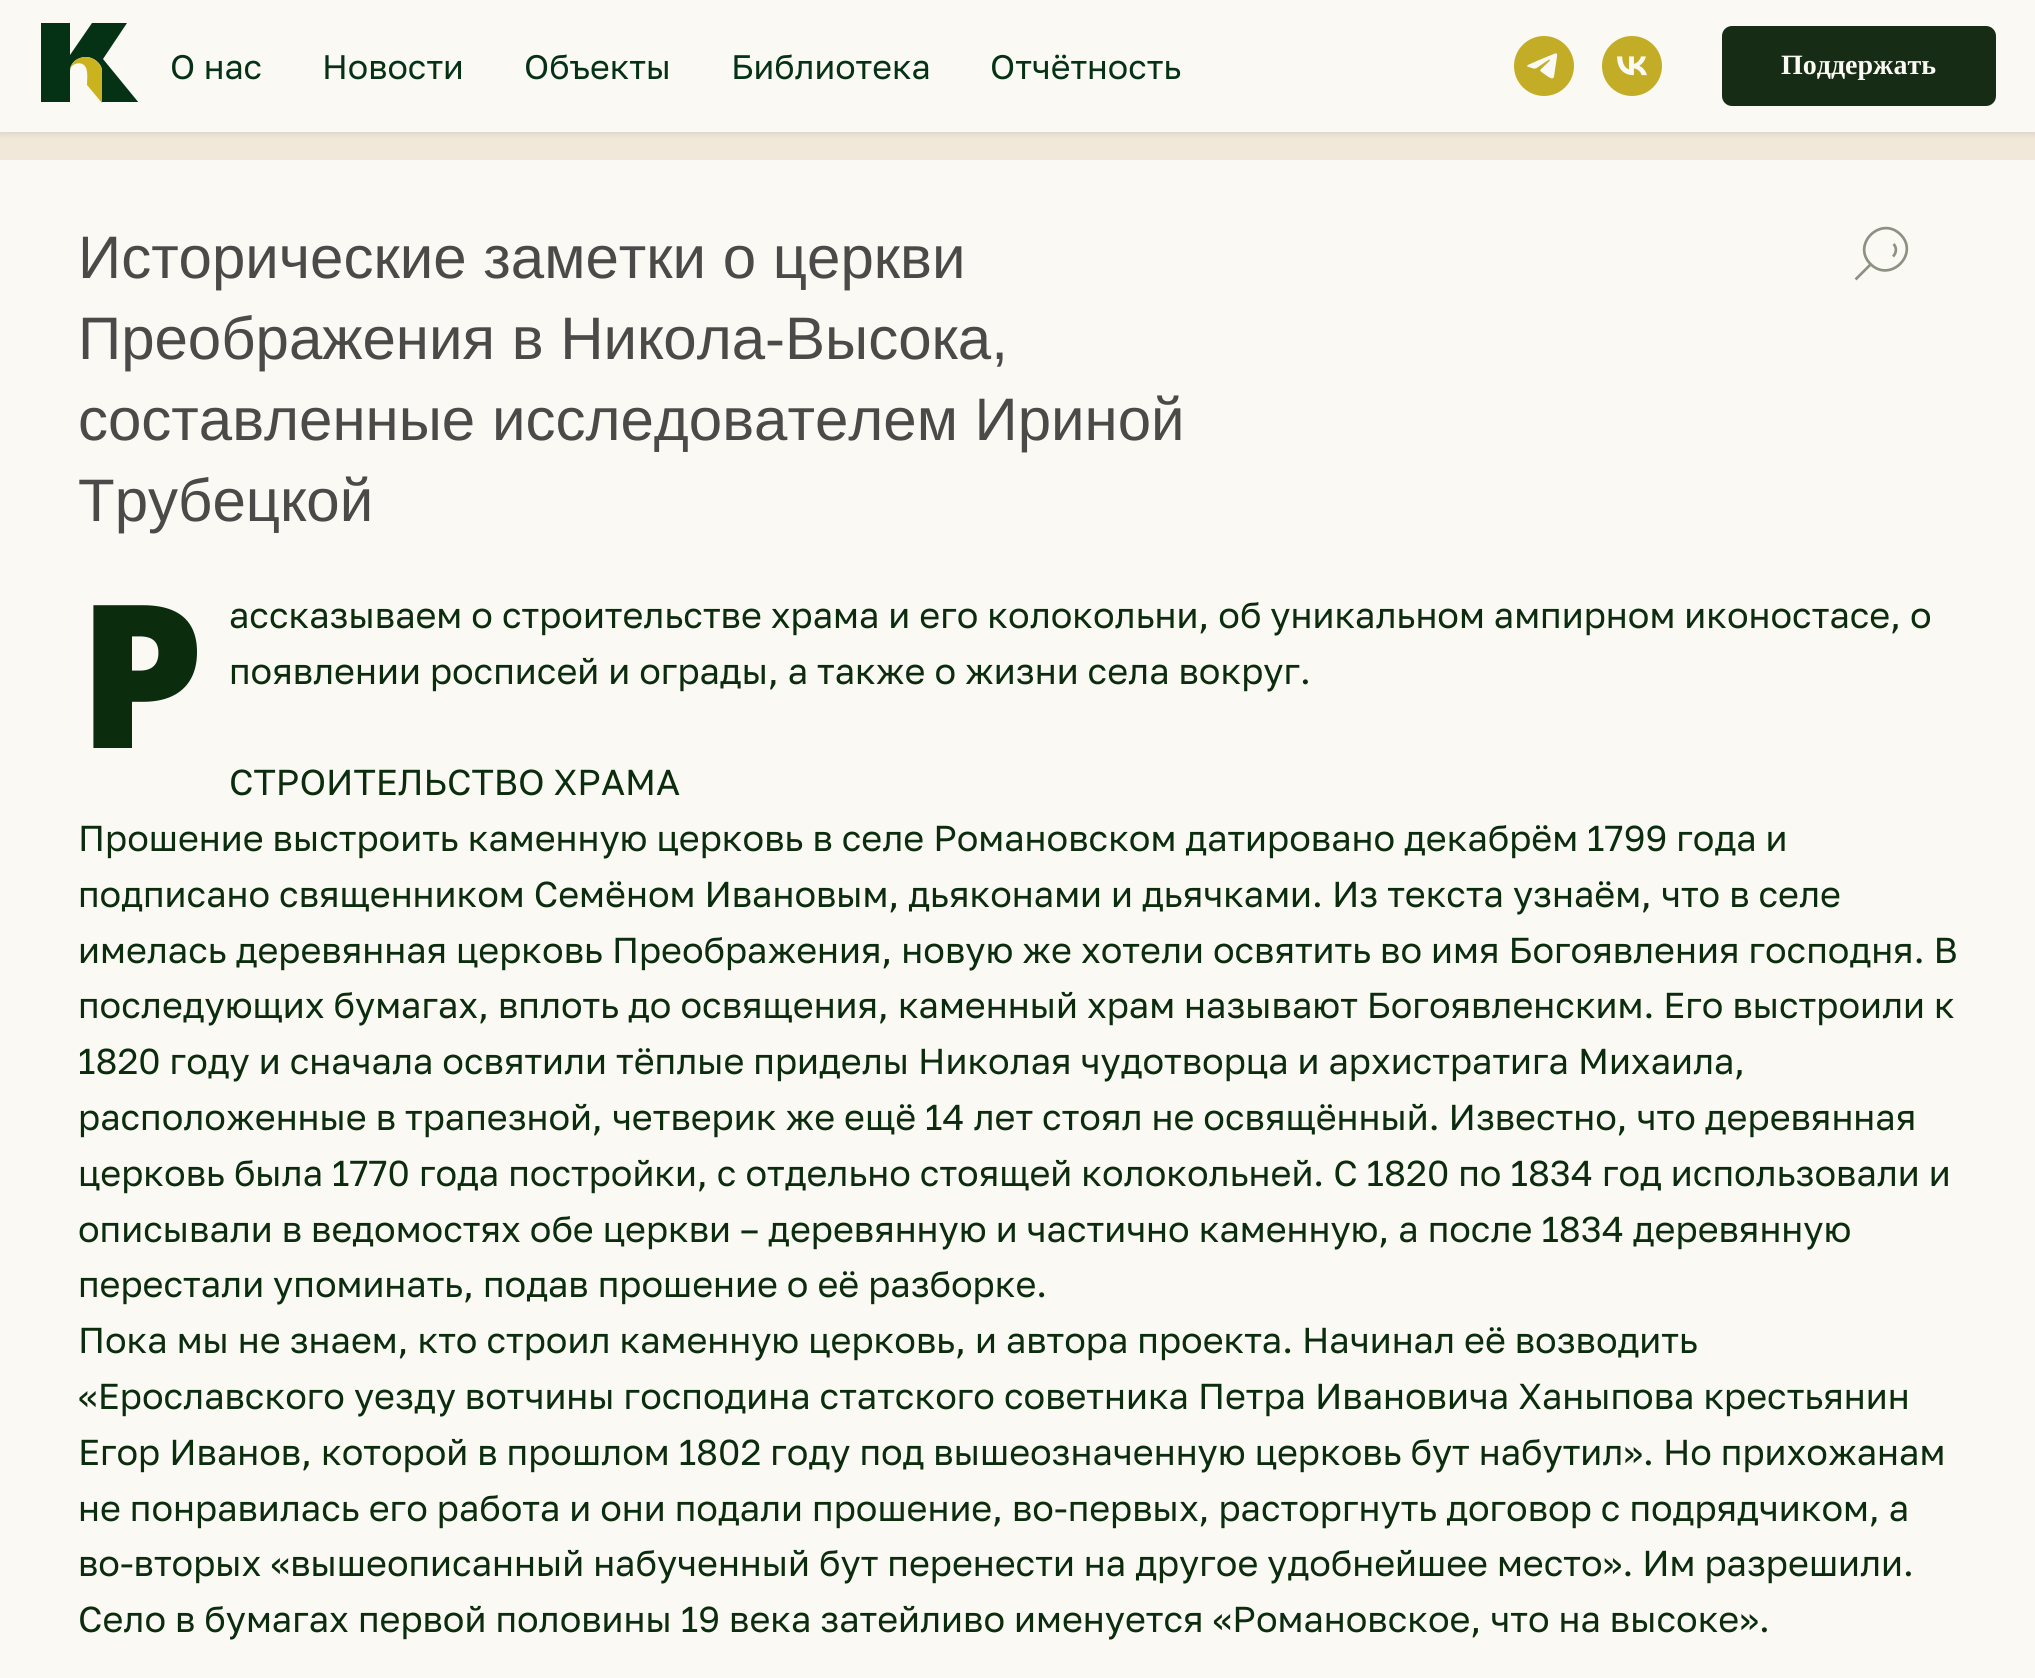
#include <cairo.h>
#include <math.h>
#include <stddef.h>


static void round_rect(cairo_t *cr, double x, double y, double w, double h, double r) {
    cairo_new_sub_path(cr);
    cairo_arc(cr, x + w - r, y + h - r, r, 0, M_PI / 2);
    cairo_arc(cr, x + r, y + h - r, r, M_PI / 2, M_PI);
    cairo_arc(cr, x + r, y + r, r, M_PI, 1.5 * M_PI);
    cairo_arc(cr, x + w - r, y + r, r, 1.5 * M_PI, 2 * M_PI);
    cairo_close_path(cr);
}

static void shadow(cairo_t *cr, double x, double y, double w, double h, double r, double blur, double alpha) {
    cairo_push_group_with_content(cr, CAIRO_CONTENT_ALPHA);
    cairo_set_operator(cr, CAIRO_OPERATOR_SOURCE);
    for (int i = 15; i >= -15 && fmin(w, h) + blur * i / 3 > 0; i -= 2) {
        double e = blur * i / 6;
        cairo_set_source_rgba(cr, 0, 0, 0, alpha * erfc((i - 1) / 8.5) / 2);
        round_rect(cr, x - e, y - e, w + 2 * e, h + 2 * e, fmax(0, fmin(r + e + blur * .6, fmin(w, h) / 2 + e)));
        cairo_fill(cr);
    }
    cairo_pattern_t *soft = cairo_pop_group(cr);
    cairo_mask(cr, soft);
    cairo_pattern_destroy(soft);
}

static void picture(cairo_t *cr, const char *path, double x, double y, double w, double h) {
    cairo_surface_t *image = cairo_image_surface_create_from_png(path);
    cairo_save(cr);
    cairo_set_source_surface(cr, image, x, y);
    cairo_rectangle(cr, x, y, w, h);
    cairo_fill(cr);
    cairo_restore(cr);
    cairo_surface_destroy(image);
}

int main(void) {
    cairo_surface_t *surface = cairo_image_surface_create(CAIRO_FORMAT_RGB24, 2035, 1678);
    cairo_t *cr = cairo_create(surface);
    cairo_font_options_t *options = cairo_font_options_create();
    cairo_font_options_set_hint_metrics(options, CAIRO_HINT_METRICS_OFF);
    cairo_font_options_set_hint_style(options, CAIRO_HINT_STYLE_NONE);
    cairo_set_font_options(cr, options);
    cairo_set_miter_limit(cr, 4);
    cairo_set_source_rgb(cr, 0.98, 0.973, 0.957);
    cairo_paint(cr);
    cairo_set_source_rgb(cr, 0.945, 0.91, 0.855);
    cairo_rectangle(cr, 0, 132, 2035, 28);
    cairo_fill(cr);
    cairo_set_source_rgb(cr, 0, 0, 0);
    shadow(cr, 0, 2, 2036, 132, 0, 3, 0.1);
    cairo_set_source_rgb(cr, 0.98, 0.973, 0.957);
    cairo_rectangle(cr, 0, 0, 2035, 132);
    cairo_fill(cr);
    cairo_save(cr);
    cairo_rectangle(cr, 40, 22, 100, 80);
    cairo_clip(cr);
    cairo_set_source_rgb(cr, 0.02, 0.192, 0.082);
    cairo_set_fill_rule(cr, CAIRO_FILL_RULE_EVEN_ODD);
    cairo_new_path(cr);
    cairo_move_to(cr, 41, 23);
    cairo_line_to(cr, 41, 103);
    cairo_line_to(cr, 70, 103);
    cairo_line_to(cr, 70, 71);
    cairo_curve_to(cr, 70, 63, 77, 57, 86, 57);
    cairo_curve_to(cr, 94, 57, 102, 64, 102, 71);
    cairo_line_to(cr, 102, 103);
    cairo_line_to(cr, 139, 103);
    cairo_line_to(cr, 103, 59);
    cairo_line_to(cr, 127, 23);
    cairo_line_to(cr, 92, 23);
    cairo_line_to(cr, 70, 55);
    cairo_line_to(cr, 70, 23);
    cairo_close_path(cr);
    cairo_fill(cr);
    cairo_restore(cr);
    cairo_set_source_rgb(cr, 0.796, 0.702, 0.122);
    cairo_new_path(cr);
    cairo_move_to(cr, 102, 103);
    cairo_line_to(cr, 102, 71);
    cairo_curve_to(cr, 102, 64, 94, 57, 86, 57);
    cairo_curve_to(cr, 77, 57, 70, 63, 70, 71);
    cairo_curve_to(cr, 70, 63, 83, 60, 86, 68);
    cairo_curve_to(cr, 88, 72, 87, 81, 87, 85);
    cairo_close_path(cr);
    cairo_fill(cr);
    cairo_select_font_face(cr, "Golos Text", CAIRO_FONT_SLANT_NORMAL, CAIRO_FONT_WEIGHT_NORMAL);
    cairo_set_font_size(cr, 34);
    cairo_set_source_rgb(cr, 0.02, 0.192, 0.082);
    cairo_move_to(cr, 170, 79);
    cairo_show_text(cr, "О нас");
    cairo_move_to(cr, 322, 79);
    cairo_show_text(cr, "Новости");
    cairo_move_to(cr, 524, 79);
    cairo_show_text(cr, "Объекты");
    cairo_move_to(cr, 731, 79);
    cairo_show_text(cr, "Библиотека");
    cairo_move_to(cr, 990, 79);
    cairo_show_text(cr, "Отчётность");
    picture(cr, "img1.png", 1514, 36, 60, 60);
    picture(cr, "img2.png", 1602, 36, 60, 60);
    cairo_set_source_rgb(cr, 0.09, 0.173, 0.082);
    round_rect(cr, 1722, 26, 274, 80, 10);
    cairo_fill(cr);
    cairo_select_font_face(cr, "Liberation Serif", CAIRO_FONT_SLANT_NORMAL, CAIRO_FONT_WEIGHT_BOLD);
    cairo_set_font_size(cr, 28);
    cairo_set_source_rgb(cr, 0.98, 0.973, 0.957);
    cairo_move_to(cr, 1781, 74);
    cairo_show_text(cr, "Поддержать");
    cairo_new_path(cr);
    cairo_move_to(cr, 1870, 265);
    cairo_line_to(cr, 1856.5, 278.5);
    cairo_set_source_rgb(cr, 0.553, 0.569, 0.514);
    cairo_set_line_width(cr, 2.7);
    cairo_set_line_cap(cr, CAIRO_LINE_CAP_SQUARE);
    cairo_stroke(cr);
    cairo_new_path(cr);
    cairo_move_to(cr, 1900.5, 234.5);
    cairo_curve_to(cr, 1920, 254, 1890, 283.5, 1870.5, 264);
    cairo_curve_to(cr, 1851, 244.5, 1881, 215, 1900.5, 234.5);
    cairo_close_path(cr);
    cairo_move_to(cr, 1893.5, 244);
    cairo_curve_to(cr, 1897, 247.5, 1896.5, 253, 1893, 256.5);
    cairo_set_line_cap(cr, CAIRO_LINE_CAP_BUTT);
    cairo_stroke(cr);
    cairo_select_font_face(cr, "Liberation Sans", CAIRO_FONT_SLANT_NORMAL, CAIRO_FONT_WEIGHT_NORMAL);
    cairo_set_font_size(cr, 60);
    cairo_set_source_rgb(cr, 0.294, 0.29, 0.286);
    cairo_move_to(cr, 78, 278);
    cairo_show_text(cr, "Исторические заметки о церкви");
    cairo_move_to(cr, 78, 359);
    cairo_show_text(cr, "Преображения в Никола-Высока,");
    cairo_move_to(cr, 78, 440);
    cairo_show_text(cr, "составленные исследователем Ириной");
    cairo_move_to(cr, 78, 521);
    cairo_show_text(cr, "Трубецкой");
    cairo_select_font_face(cr, "Noto Sans Black", CAIRO_FONT_SLANT_NORMAL, CAIRO_FONT_WEIGHT_NORMAL);
    cairo_set_font_size(cr, 200);
    cairo_set_source_rgb(cr, 0.043, 0.176, 0.055);
    cairo_move_to(cr, 78, 748);
    cairo_show_text(cr, "Р");
    cairo_select_font_face(cr, "Golos Text", CAIRO_FONT_SLANT_NORMAL, CAIRO_FONT_WEIGHT_NORMAL);
    cairo_set_font_size(cr, 36);
    cairo_move_to(cr, 229, 628);
    cairo_show_text(cr, "ассказываем о строительстве храма и его колокольни, об уникальном ампирном иконостасе, о");
    cairo_move_to(cr, 229, 684);
    cairo_show_text(cr, "появлении росписей и ограды, а также о жизни села вокруг.");
    cairo_move_to(cr, 229, 795);
    cairo_show_text(cr, "СТРОИТЕЛЬСТВО ХРАМА");
    cairo_move_to(cr, 78, 851);
    cairo_show_text(cr, "Прошение выстроить каменную церковь в селе Романовском датировано декабрём 1799 года и");
    cairo_move_to(cr, 78, 907);
    cairo_show_text(cr, "подписано священником Семёном Ивановым, дьяконами и дьячками. Из текста узнаём, что в селе");
    cairo_move_to(cr, 78, 963);
    cairo_show_text(cr, "имелась деревянная церковь Преображения, новую же хотели освятить во имя Богоявления господня. В");
    cairo_move_to(cr, 78, 1018);
    cairo_show_text(cr, "последующих бумагах, вплоть до освящения, каменный храм называют Богоявленским. Его выстроили к");
    cairo_move_to(cr, 78, 1074);
    cairo_show_text(cr, "1820 году и сначала освятили тёплые приделы Николая чудотворца и архистратига Михаила,");
    cairo_move_to(cr, 78, 1130);
    cairo_show_text(cr, "расположенные в трапезной, четверик же ещё 14 лет стоял не освящённый. Известно, что деревянная");
    cairo_move_to(cr, 78, 1186);
    cairo_show_text(cr, "церковь была 1770 года постройки, с отдельно стоящей колокольней. С 1820 по 1834 год использовали и");
    cairo_move_to(cr, 78, 1242);
    cairo_show_text(cr, "описывали в ведомостях обе церкви – деревянную и частично каменную, а после 1834 деревянную");
    cairo_move_to(cr, 78, 1297);
    cairo_show_text(cr, "перестали упоминать, подав прошение о её разборке.");
    cairo_move_to(cr, 78, 1353);
    cairo_show_text(cr, "Пока мы не знаем, кто строил каменную церковь, и автора проекта. Начинал её возводить");
    cairo_move_to(cr, 78, 1409);
    cairo_show_text(cr, "«Ерославского уезду вотчины господина статского советника Петра Ивановича Ханыпова крестьянин");
    cairo_move_to(cr, 78, 1465);
    cairo_show_text(cr, "Егор Иванов, которой в прошлом 1802 году под вышеозначенную церковь бут набутил». Но прихожанам");
    cairo_move_to(cr, 78, 1521);
    cairo_show_text(cr, "не понравилась его работа и они подали прошение, во-первых, расторгнуть договор с подрядчиком, а");
    cairo_move_to(cr, 78, 1576);
    cairo_show_text(cr, "во-вторых «вышеописанный набученный бут перенести на другое удобнейшее место». Им разрешили.");
    cairo_move_to(cr, 78, 1632);
    cairo_show_text(cr, "Село в бумагах первой половины 19 века затейливо именуется «Романовское, что на высоке».");
    cairo_surface_write_to_png(surface, "page.png");
    cairo_font_options_destroy(options);
    cairo_destroy(cr);
    cairo_surface_destroy(surface);
    return 0;
}
